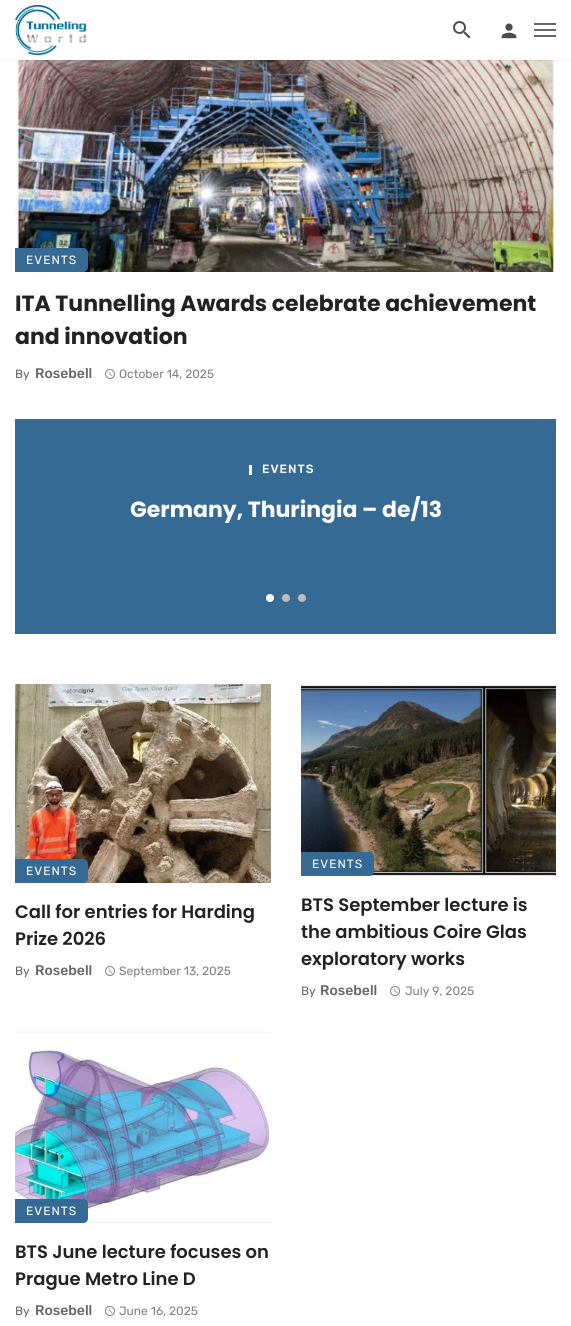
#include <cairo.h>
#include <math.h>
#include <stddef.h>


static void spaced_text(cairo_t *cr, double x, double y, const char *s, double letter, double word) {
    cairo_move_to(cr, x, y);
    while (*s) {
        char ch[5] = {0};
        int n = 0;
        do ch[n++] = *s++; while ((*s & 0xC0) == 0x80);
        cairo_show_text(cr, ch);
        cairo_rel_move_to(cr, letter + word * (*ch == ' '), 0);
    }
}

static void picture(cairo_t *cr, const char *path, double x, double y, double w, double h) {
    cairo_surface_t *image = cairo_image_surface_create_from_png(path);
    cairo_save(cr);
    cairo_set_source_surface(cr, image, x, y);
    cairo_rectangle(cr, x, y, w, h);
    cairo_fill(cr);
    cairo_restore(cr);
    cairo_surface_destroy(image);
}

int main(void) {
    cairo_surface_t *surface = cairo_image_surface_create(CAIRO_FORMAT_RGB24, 571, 1326);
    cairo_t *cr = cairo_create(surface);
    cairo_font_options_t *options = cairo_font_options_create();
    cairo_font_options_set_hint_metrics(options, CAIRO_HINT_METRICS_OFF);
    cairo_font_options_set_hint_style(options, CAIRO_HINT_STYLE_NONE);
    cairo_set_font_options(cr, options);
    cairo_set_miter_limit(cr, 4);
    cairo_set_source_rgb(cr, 1, 1, 1);
    cairo_paint(cr);
    picture(cr, "img4.png", 15, 60, 541, 212);
    cairo_set_source_rgba(cr, 0, 0, 0, 0.04);
    cairo_rectangle(cr, 0, 60, 571, 1);
    cairo_fill(cr);
    picture(cr, "img1.png", 15, 5, 72, 50);
    picture(cr, "img2.png", 453, 21, 18, 18);
    picture(cr, "img3.png", 501, 23, 16, 16);
    cairo_set_source_rgb(cr, 0.404, 0.404, 0.404);
    cairo_rectangle(cr, 534, 29, 22, 2);
    cairo_fill(cr);
    cairo_rectangle(cr, 534, 23, 22, 2);
    cairo_fill(cr);
    cairo_rectangle(cr, 534, 35, 22, 2);
    cairo_fill(cr);
    cairo_set_source_rgb(cr, 0.204, 0.416, 0.576);
    cairo_new_path(cr);
    cairo_move_to(cr, 15, 248);
    cairo_line_to(cr, 83, 248);
    cairo_curve_to(cr, 86, 248, 88, 250, 88, 253);
    cairo_line_to(cr, 88, 267);
    cairo_curve_to(cr, 88, 270, 86, 272, 83, 272);
    cairo_line_to(cr, 15, 272);
    cairo_close_path(cr);
    cairo_fill(cr);
    cairo_select_font_face(cr, "Rubik", CAIRO_FONT_SLANT_NORMAL, CAIRO_FONT_WEIGHT_NORMAL);
    cairo_set_font_size(cr, 12);
    cairo_set_source_rgb(cr, 1, 1, 1);
    spaced_text(cr, 26, 264, "EVENTS", 1, 0);
    cairo_select_font_face(cr, "Poppins", CAIRO_FONT_SLANT_NORMAL, CAIRO_FONT_WEIGHT_BOLD);
    cairo_set_font_size(cr, 22);
    cairo_set_source_rgb(cr, 0.133, 0.133, 0.133);
    cairo_move_to(cr, 15, 311);
    cairo_show_text(cr, "ITA Tunnelling Awards celebrate achievement");
    cairo_move_to(cr, 15, 344);
    cairo_show_text(cr, "and innovation");
    cairo_select_font_face(cr, "Rubik", CAIRO_FONT_SLANT_NORMAL, CAIRO_FONT_WEIGHT_NORMAL);
    cairo_set_font_size(cr, 12);
    cairo_set_source_rgb(cr, 0.4, 0.4, 0.4);
    cairo_move_to(cr, 15, 378);
    cairo_show_text(cr, "By");
    cairo_select_font_face(cr, "Rubik Medium", CAIRO_FONT_SLANT_NORMAL, CAIRO_FONT_WEIGHT_NORMAL);
    cairo_set_font_size(cr, 14);
    cairo_move_to(cr, 35, 378);
    cairo_show_text(cr, "Rosebell");
    picture(cr, "img5.png", 105, 369, 10, 10);
    cairo_select_font_face(cr, "Rubik", CAIRO_FONT_SLANT_NORMAL, CAIRO_FONT_WEIGHT_NORMAL);
    cairo_set_font_size(cr, 12);
    cairo_set_source_rgb(cr, 0.502, 0.502, 0.502);
    cairo_move_to(cr, 119, 378);
    cairo_show_text(cr, "October 14, 2025");
    cairo_set_source_rgb(cr, 0.204, 0.416, 0.576);
    cairo_rectangle(cr, 15, 419, 541, 215);
    cairo_fill(cr);
    cairo_set_source_rgb(cr, 1, 1, 1);
    cairo_rectangle(cr, 249, 465, 3, 10);
    cairo_fill(cr);
    cairo_select_font_face(cr, "Rubik Medium", CAIRO_FONT_SLANT_NORMAL, CAIRO_FONT_WEIGHT_NORMAL);
    spaced_text(cr, 262, 473, "EVENTS", 1, 0);
    cairo_select_font_face(cr, "Poppins", CAIRO_FONT_SLANT_NORMAL, CAIRO_FONT_WEIGHT_BOLD);
    cairo_set_font_size(cr, 22);
    cairo_move_to(cr, 130, 517);
    cairo_show_text(cr, "Germany, Thuringia – de/13");
    cairo_new_path(cr);
    cairo_arc(cr, 270, 598, 4, 0, 2 * M_PI);
    cairo_fill(cr);
    cairo_set_source_rgb(cr, 0.733, 0.733, 0.733);
    cairo_arc(cr, 286, 598, 4, 0, 2 * M_PI);
    cairo_fill(cr);
    cairo_arc(cr, 302, 598, 4, 0, 2 * M_PI);
    cairo_fill(cr);
    picture(cr, "img6.png", 15, 684, 256, 199);
    cairo_set_source_rgb(cr, 0.204, 0.416, 0.576);
    cairo_new_path(cr);
    cairo_move_to(cr, 15, 859);
    cairo_line_to(cr, 83, 859);
    cairo_curve_to(cr, 86, 859, 88, 861, 88, 864);
    cairo_line_to(cr, 88, 878);
    cairo_curve_to(cr, 88, 881, 86, 883, 83, 883);
    cairo_line_to(cr, 15, 883);
    cairo_close_path(cr);
    cairo_fill(cr);
    cairo_select_font_face(cr, "Rubik", CAIRO_FONT_SLANT_NORMAL, CAIRO_FONT_WEIGHT_NORMAL);
    cairo_set_font_size(cr, 12);
    cairo_set_source_rgb(cr, 1, 1, 1);
    spaced_text(cr, 26, 875, "EVENTS", 1, 0);
    cairo_select_font_face(cr, "Poppins SemiBold", CAIRO_FONT_SLANT_NORMAL, CAIRO_FONT_WEIGHT_NORMAL);
    cairo_set_font_size(cr, 18);
    cairo_set_source_rgb(cr, 0.133, 0.133, 0.133);
    cairo_move_to(cr, 15, 918);
    cairo_show_text(cr, "Call for entries for Harding");
    cairo_move_to(cr, 15, 945);
    cairo_show_text(cr, "Prize 2026");
    cairo_select_font_face(cr, "Rubik", CAIRO_FONT_SLANT_NORMAL, CAIRO_FONT_WEIGHT_NORMAL);
    cairo_set_font_size(cr, 12);
    cairo_set_source_rgb(cr, 0.4, 0.4, 0.4);
    cairo_move_to(cr, 15, 975);
    cairo_show_text(cr, "By");
    cairo_select_font_face(cr, "Rubik Medium", CAIRO_FONT_SLANT_NORMAL, CAIRO_FONT_WEIGHT_NORMAL);
    cairo_set_font_size(cr, 14);
    cairo_move_to(cr, 35, 975);
    cairo_show_text(cr, "Rosebell");
    picture(cr, "img5.png", 105, 966, 10, 10);
    cairo_select_font_face(cr, "Rubik", CAIRO_FONT_SLANT_NORMAL, CAIRO_FONT_WEIGHT_NORMAL);
    cairo_set_font_size(cr, 12);
    cairo_set_source_rgb(cr, 0.502, 0.502, 0.502);
    cairo_move_to(cr, 119, 975);
    cairo_show_text(cr, "September 13, 2025");
    picture(cr, "img7.png", 301, 684, 255, 192);
    cairo_set_source_rgb(cr, 0.204, 0.416, 0.576);
    cairo_new_path(cr);
    cairo_move_to(cr, 301, 852);
    cairo_line_to(cr, 369, 852);
    cairo_curve_to(cr, 372, 852, 374, 854, 374, 857);
    cairo_line_to(cr, 374, 871);
    cairo_curve_to(cr, 374, 874, 372, 876, 369, 876);
    cairo_line_to(cr, 301, 876);
    cairo_close_path(cr);
    cairo_fill(cr);
    cairo_set_source_rgb(cr, 1, 1, 1);
    spaced_text(cr, 312, 868, "EVENTS", 1, 0);
    cairo_select_font_face(cr, "Poppins SemiBold", CAIRO_FONT_SLANT_NORMAL, CAIRO_FONT_WEIGHT_NORMAL);
    cairo_set_font_size(cr, 18);
    cairo_set_source_rgb(cr, 0.133, 0.133, 0.133);
    cairo_move_to(cr, 301, 911);
    cairo_show_text(cr, "BTS September lecture is");
    cairo_move_to(cr, 301, 938);
    cairo_show_text(cr, "the ambitious Coire Glas");
    cairo_move_to(cr, 301, 965);
    cairo_show_text(cr, "exploratory works");
    cairo_select_font_face(cr, "Rubik", CAIRO_FONT_SLANT_NORMAL, CAIRO_FONT_WEIGHT_NORMAL);
    cairo_set_font_size(cr, 12);
    cairo_set_source_rgb(cr, 0.4, 0.4, 0.4);
    cairo_move_to(cr, 301, 995);
    cairo_show_text(cr, "By");
    cairo_select_font_face(cr, "Rubik Medium", CAIRO_FONT_SLANT_NORMAL, CAIRO_FONT_WEIGHT_NORMAL);
    cairo_set_font_size(cr, 14);
    cairo_move_to(cr, 320, 995);
    cairo_show_text(cr, "Rosebell");
    picture(cr, "img5.png", 390, 986, 10, 10);
    cairo_select_font_face(cr, "Rubik", CAIRO_FONT_SLANT_NORMAL, CAIRO_FONT_WEIGHT_NORMAL);
    cairo_set_font_size(cr, 12);
    cairo_set_source_rgb(cr, 0.502, 0.502, 0.502);
    cairo_move_to(cr, 405, 995);
    cairo_show_text(cr, "July 9, 2025");
    picture(cr, "img8.png", 15, 1031, 256, 192);
    cairo_set_source_rgb(cr, 0.204, 0.416, 0.576);
    cairo_new_path(cr);
    cairo_move_to(cr, 15, 1199);
    cairo_line_to(cr, 83, 1199);
    cairo_curve_to(cr, 86, 1199, 88, 1201, 88, 1204);
    cairo_line_to(cr, 88, 1218);
    cairo_curve_to(cr, 88, 1221, 86, 1223, 83, 1223);
    cairo_line_to(cr, 15, 1223);
    cairo_close_path(cr);
    cairo_fill(cr);
    cairo_set_source_rgb(cr, 1, 1, 1);
    spaced_text(cr, 26, 1215, "EVENTS", 1, 0);
    cairo_select_font_face(cr, "Poppins SemiBold", CAIRO_FONT_SLANT_NORMAL, CAIRO_FONT_WEIGHT_NORMAL);
    cairo_set_font_size(cr, 18);
    cairo_set_source_rgb(cr, 0.133, 0.133, 0.133);
    cairo_move_to(cr, 15, 1258);
    cairo_show_text(cr, "BTS June lecture focuses on");
    cairo_move_to(cr, 15, 1285);
    cairo_show_text(cr, "Prague Metro Line D");
    cairo_select_font_face(cr, "Rubik", CAIRO_FONT_SLANT_NORMAL, CAIRO_FONT_WEIGHT_NORMAL);
    cairo_set_font_size(cr, 12);
    cairo_set_source_rgb(cr, 0.4, 0.4, 0.4);
    cairo_move_to(cr, 15, 1315);
    cairo_show_text(cr, "By");
    cairo_select_font_face(cr, "Rubik Medium", CAIRO_FONT_SLANT_NORMAL, CAIRO_FONT_WEIGHT_NORMAL);
    cairo_set_font_size(cr, 14);
    cairo_move_to(cr, 35, 1315);
    cairo_show_text(cr, "Rosebell");
    picture(cr, "img5.png", 105, 1306, 10, 10);
    cairo_select_font_face(cr, "Rubik", CAIRO_FONT_SLANT_NORMAL, CAIRO_FONT_WEIGHT_NORMAL);
    cairo_set_font_size(cr, 12);
    cairo_set_source_rgb(cr, 0.502, 0.502, 0.502);
    cairo_move_to(cr, 119, 1315);
    cairo_show_text(cr, "June 16, 2025");
    cairo_surface_write_to_png(surface, "page.png");
    cairo_font_options_destroy(options);
    cairo_destroy(cr);
    cairo_surface_destroy(surface);
    return 0;
}
